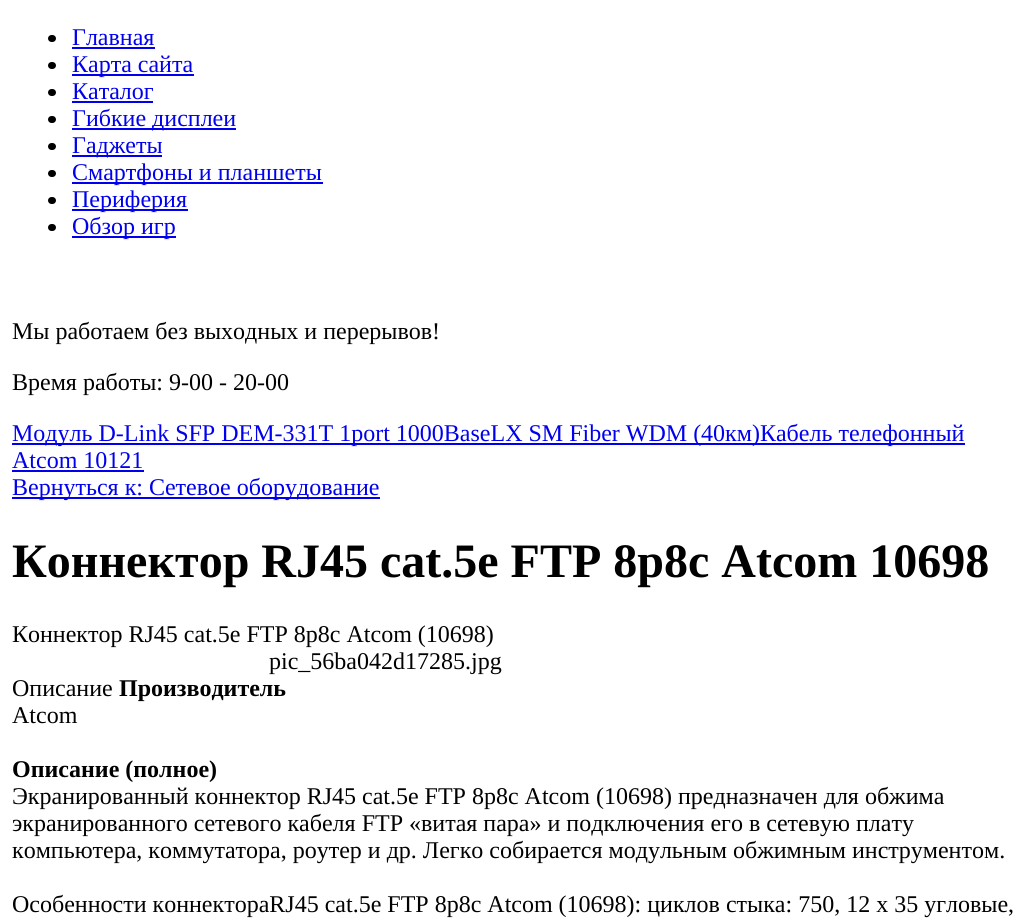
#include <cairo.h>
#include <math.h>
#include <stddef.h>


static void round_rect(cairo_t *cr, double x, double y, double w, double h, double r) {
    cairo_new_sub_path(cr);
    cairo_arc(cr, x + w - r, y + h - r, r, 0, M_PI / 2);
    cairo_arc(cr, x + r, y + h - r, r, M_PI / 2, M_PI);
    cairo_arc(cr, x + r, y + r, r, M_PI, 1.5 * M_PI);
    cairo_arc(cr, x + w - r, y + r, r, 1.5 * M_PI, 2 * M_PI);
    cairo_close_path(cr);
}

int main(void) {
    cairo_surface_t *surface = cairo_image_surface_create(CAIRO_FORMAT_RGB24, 1029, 920);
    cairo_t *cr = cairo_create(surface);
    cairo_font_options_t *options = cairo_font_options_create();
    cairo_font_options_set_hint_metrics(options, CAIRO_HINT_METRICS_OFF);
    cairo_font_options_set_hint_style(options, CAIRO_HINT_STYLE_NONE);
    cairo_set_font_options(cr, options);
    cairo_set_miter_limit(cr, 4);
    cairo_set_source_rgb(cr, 1, 1, 1);
    cairo_paint(cr);
    cairo_set_source_rgb(cr, 0, 0, 0);
    round_rect(cr, 48, 35, 8, 7, 3.5);
    cairo_fill(cr);
    cairo_select_font_face(cr, "Liberation Serif", CAIRO_FONT_SLANT_NORMAL, CAIRO_FONT_WEIGHT_NORMAL);
    cairo_set_font_size(cr, 24);
    cairo_set_source_rgb(cr, 0, 0, 0.933);
    cairo_move_to(cr, 72, 45);
    cairo_show_text(cr, "Главная");
    cairo_rectangle(cr, 72, 47, 83, 2);
    cairo_fill(cr);
    cairo_set_source_rgb(cr, 0, 0, 0);
    round_rect(cr, 48, 62, 8, 7, 3.5);
    cairo_fill(cr);
    cairo_set_source_rgb(cr, 0, 0, 0.933);
    cairo_rectangle(cr, 72, 74, 122, 2);
    cairo_fill(cr);
    cairo_move_to(cr, 72, 72);
    cairo_show_text(cr, "Карта сайта");
    cairo_set_source_rgb(cr, 0, 0, 0);
    round_rect(cr, 48, 89, 8, 7, 3.5);
    cairo_fill(cr);
    cairo_set_source_rgb(cr, 0, 0, 0.933);
    cairo_move_to(cr, 72, 99);
    cairo_show_text(cr, "Каталог");
    cairo_rectangle(cr, 72, 101, 81, 2);
    cairo_fill(cr);
    cairo_set_source_rgb(cr, 0, 0, 0);
    round_rect(cr, 48, 116, 8, 7, 3.5);
    cairo_fill(cr);
    cairo_set_source_rgb(cr, 0, 0, 0.933);
    cairo_rectangle(cr, 72, 128, 164, 2);
    cairo_fill(cr);
    cairo_move_to(cr, 72, 126);
    cairo_show_text(cr, "Гибкие дисплеи");
    cairo_set_source_rgb(cr, 0, 0, 0);
    round_rect(cr, 48, 143, 8, 7, 3.5);
    cairo_fill(cr);
    cairo_set_source_rgb(cr, 0, 0, 0.933);
    cairo_rectangle(cr, 72, 155, 90, 2);
    cairo_fill(cr);
    cairo_move_to(cr, 72, 153);
    cairo_show_text(cr, "Гаджеты");
    cairo_set_source_rgb(cr, 0, 0, 0);
    round_rect(cr, 48, 170, 8, 7, 3.5);
    cairo_fill(cr);
    cairo_set_source_rgb(cr, 0, 0, 0.933);
    cairo_rectangle(cr, 72, 182, 251, 2);
    cairo_fill(cr);
    cairo_move_to(cr, 72, 180);
    cairo_show_text(cr, "Смартфоны и планшеты");
    cairo_set_source_rgb(cr, 0, 0, 0);
    round_rect(cr, 48, 197, 8, 7, 3.5);
    cairo_fill(cr);
    cairo_set_source_rgb(cr, 0, 0, 0.933);
    cairo_rectangle(cr, 72, 209, 116, 2);
    cairo_fill(cr);
    cairo_move_to(cr, 72, 207);
    cairo_show_text(cr, "Периферия");
    cairo_set_source_rgb(cr, 0, 0, 0);
    round_rect(cr, 48, 224, 8, 7, 3.5);
    cairo_fill(cr);
    cairo_set_source_rgb(cr, 0, 0, 0.933);
    cairo_rectangle(cr, 72, 236, 104, 2);
    cairo_fill(cr);
    cairo_move_to(cr, 72, 234);
    cairo_show_text(cr, "Обзор игр");
    cairo_set_source_rgb(cr, 0, 0, 0);
    cairo_move_to(cr, 12, 339);
    cairo_show_text(cr, "Мы работаем без выходных и перерывов!");
    cairo_move_to(cr, 12, 390);
    cairo_show_text(cr, "Время работы: 9-00 - 20-00");
    cairo_set_source_rgb(cr, 0, 0, 0.933);
    cairo_rectangle(cr, 12, 443, 953, 2);
    cairo_fill(cr);
    cairo_move_to(cr, 12, 441);
    cairo_show_text(cr, "Модуль D-Link SFP DEM-331T 1port 1000BaseLX SM Fiber WDM (40км)Кабель телефонный");
    cairo_move_to(cr, 12, 468);
    cairo_show_text(cr, "Atcom 10121");
    cairo_rectangle(cr, 12, 470, 132, 2);
    cairo_fill(cr);
    cairo_rectangle(cr, 12, 497, 368, 2);
    cairo_fill(cr);
    cairo_move_to(cr, 12, 495);
    cairo_show_text(cr, "Вернуться к: Сетевое оборудование");
    cairo_select_font_face(cr, "Liberation Serif", CAIRO_FONT_SLANT_NORMAL, CAIRO_FONT_WEIGHT_BOLD);
    cairo_set_font_size(cr, 48);
    cairo_set_source_rgb(cr, 0, 0, 0);
    cairo_move_to(cr, 12, 577);
    cairo_show_text(cr, "Коннектор RJ45 cat.5e FTP 8p8c Atcom 10698");
    cairo_select_font_face(cr, "Liberation Serif", CAIRO_FONT_SLANT_NORMAL, CAIRO_FONT_WEIGHT_NORMAL);
    cairo_set_font_size(cr, 24);
    cairo_move_to(cr, 12, 642);
    cairo_show_text(cr, "Коннектор RJ45 cat.5e FTP 8p8c Atcom (10698)");
    cairo_move_to(cr, 269, 669);
    cairo_show_text(cr, "pic_56ba042d17285.jpg");
    cairo_move_to(cr, 12, 696);
    cairo_show_text(cr, "Описание");
    cairo_select_font_face(cr, "Liberation Serif", CAIRO_FONT_SLANT_NORMAL, CAIRO_FONT_WEIGHT_BOLD);
    cairo_move_to(cr, 119, 696);
    cairo_show_text(cr, "Производитель");
    cairo_select_font_face(cr, "Liberation Serif", CAIRO_FONT_SLANT_NORMAL, CAIRO_FONT_WEIGHT_NORMAL);
    cairo_move_to(cr, 12, 723);
    cairo_show_text(cr, "Atcom");
    cairo_select_font_face(cr, "Liberation Serif", CAIRO_FONT_SLANT_NORMAL, CAIRO_FONT_WEIGHT_BOLD);
    cairo_move_to(cr, 12, 777);
    cairo_show_text(cr, "Описание (полное)");
    cairo_select_font_face(cr, "Liberation Serif", CAIRO_FONT_SLANT_NORMAL, CAIRO_FONT_WEIGHT_NORMAL);
    cairo_move_to(cr, 12, 804);
    cairo_show_text(cr, "Экранированный коннектор RJ45 cat.5e FTP 8p8c Atcom (10698) предназначен для обжима");
    cairo_move_to(cr, 12, 831);
    cairo_show_text(cr, "экранированного сетевого кабеля FTP «витая пара» и подключения его в сетевую плату");
    cairo_move_to(cr, 12, 858);
    cairo_show_text(cr, "компьютера, коммутатора, роутер и др. Легко собирается модульным обжимным инструментом.");
    cairo_move_to(cr, 12, 912);
    cairo_show_text(cr, "Особенности коннектораRJ45 cat.5e FTP 8p8c Atcom (10698): циклов стыка: 750, 12 х 35 угловые,");
    cairo_surface_write_to_png(surface, "page.png");
    cairo_font_options_destroy(options);
    cairo_destroy(cr);
    cairo_surface_destroy(surface);
    return 0;
}
